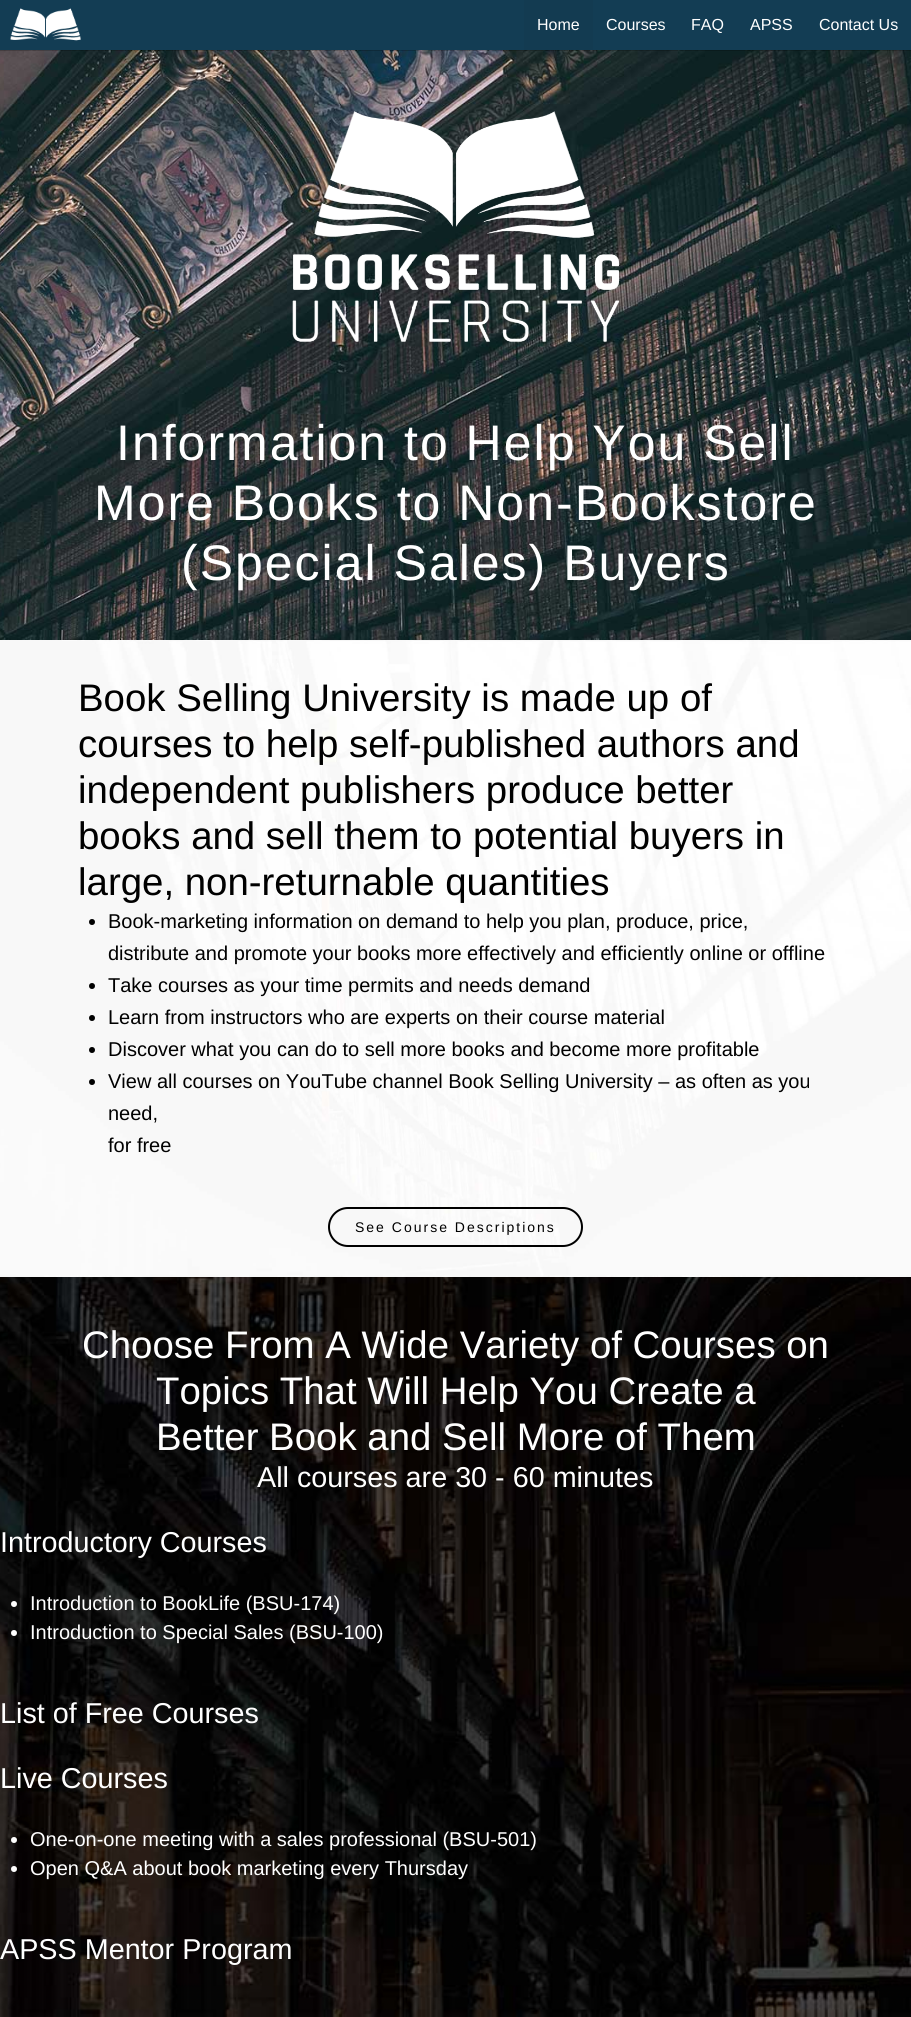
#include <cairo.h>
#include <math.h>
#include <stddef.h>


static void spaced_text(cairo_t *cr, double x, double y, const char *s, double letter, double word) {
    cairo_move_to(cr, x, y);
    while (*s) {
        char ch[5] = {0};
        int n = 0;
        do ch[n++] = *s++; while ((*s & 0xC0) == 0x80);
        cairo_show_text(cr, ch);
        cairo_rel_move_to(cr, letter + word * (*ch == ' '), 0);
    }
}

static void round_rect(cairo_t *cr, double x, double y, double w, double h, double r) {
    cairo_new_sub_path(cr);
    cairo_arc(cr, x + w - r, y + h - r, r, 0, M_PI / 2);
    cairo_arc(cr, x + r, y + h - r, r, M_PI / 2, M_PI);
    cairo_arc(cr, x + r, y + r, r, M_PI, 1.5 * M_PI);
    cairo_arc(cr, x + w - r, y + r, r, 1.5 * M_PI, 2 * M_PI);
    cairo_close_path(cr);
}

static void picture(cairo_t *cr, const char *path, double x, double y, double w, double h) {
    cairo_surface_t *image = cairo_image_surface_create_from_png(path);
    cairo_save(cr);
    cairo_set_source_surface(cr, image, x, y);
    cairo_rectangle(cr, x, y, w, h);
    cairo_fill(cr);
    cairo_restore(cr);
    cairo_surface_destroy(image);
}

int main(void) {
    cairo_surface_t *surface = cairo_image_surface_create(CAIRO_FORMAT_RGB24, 911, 2017);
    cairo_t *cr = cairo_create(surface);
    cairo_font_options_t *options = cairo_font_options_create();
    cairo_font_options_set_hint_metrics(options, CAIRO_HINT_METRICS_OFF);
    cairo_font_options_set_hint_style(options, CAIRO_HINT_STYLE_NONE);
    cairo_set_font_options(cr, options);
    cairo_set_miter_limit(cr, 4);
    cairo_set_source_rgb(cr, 1, 1, 1);
    cairo_paint(cr);
    picture(cr, "img2.png", 0, 50, 911, 590);
    cairo_set_source_rgba(cr, 0, 0, 0, 0.2);
    cairo_rectangle(cr, 0, 50, 911, 1);
    cairo_fill(cr);
    cairo_set_source_rgb(cr, 0.078, 0.239, 0.329);
    cairo_rectangle(cr, 0, 0, 911, 50);
    cairo_fill(cr);
    picture(cr, "img1.png", 10, 8, 71, 33);
    cairo_set_source_rgb(cr, 0.075, 0.231, 0.318);
    cairo_rectangle(cr, 524, 0, 69, 50);
    cairo_fill(cr);
    cairo_select_font_face(cr, "Liberation Sans", CAIRO_FONT_SLANT_NORMAL, CAIRO_FONT_WEIGHT_NORMAL);
    cairo_set_font_size(cr, 16);
    cairo_set_source_rgb(cr, 1, 1, 1);
    cairo_move_to(cr, 537, 30);
    cairo_show_text(cr, "Home");
    cairo_move_to(cr, 606, 30);
    cairo_show_text(cr, "Courses");
    cairo_move_to(cr, 691, 30);
    cairo_show_text(cr, "FAQ");
    cairo_move_to(cr, 750, 30);
    cairo_show_text(cr, "APSS");
    cairo_move_to(cr, 819, 30);
    cairo_show_text(cr, "Contact Us");
    picture(cr, "img3.png", 292, 111, 328, 231);
    cairo_set_font_size(cr, 50);
    spaced_text(cr, 116, 460, "Information to Help You Sell", 2, 0);
    spaced_text(cr, 94, 520, "More Books to Non-Bookstore", 2, 0);
    spaced_text(cr, 181, 580, "(Special Sales) Buyers", 2, 0);
    picture(cr, "img4.png", 0, 640, 911, 637);
    cairo_set_font_size(cr, 38.4);
    cairo_set_source_rgb(cr, 0, 0, 0);
    cairo_move_to(cr, 78, 711);
    cairo_show_text(cr, "Book Selling University is made up of");
    cairo_move_to(cr, 78, 757);
    cairo_show_text(cr, "courses to help self-published authors and");
    cairo_move_to(cr, 78, 803);
    cairo_show_text(cr, "independent publishers produce better");
    cairo_move_to(cr, 78, 849);
    cairo_show_text(cr, "books and sell them to potential buyers in");
    cairo_move_to(cr, 78, 895);
    cairo_show_text(cr, "large, non-returnable quantities");
    cairo_new_path(cr);
    cairo_arc(cr, 92, 922, 3, 0, 2 * M_PI);
    cairo_fill(cr);
    cairo_set_font_size(cr, 20);
    cairo_move_to(cr, 108, 928);
    cairo_show_text(cr, "Book-marketing information on demand to help you plan, produce, price,");
    cairo_move_to(cr, 108, 960);
    cairo_show_text(cr, "distribute and promote your books more effectively and efficiently online or offline");
    cairo_new_path(cr);
    cairo_arc(cr, 92, 986, 3, 0, 2 * M_PI);
    cairo_fill(cr);
    cairo_move_to(cr, 108, 992);
    cairo_show_text(cr, "Take courses as your time permits and needs demand");
    cairo_new_path(cr);
    cairo_arc(cr, 92, 1018, 3, 0, 2 * M_PI);
    cairo_fill(cr);
    cairo_move_to(cr, 108, 1024);
    cairo_show_text(cr, "Learn from instructors who are experts on their course material");
    cairo_new_path(cr);
    cairo_arc(cr, 92, 1050, 3, 0, 2 * M_PI);
    cairo_fill(cr);
    cairo_move_to(cr, 108, 1056);
    cairo_show_text(cr, "Discover what you can do to sell more books and become more profitable");
    cairo_new_path(cr);
    cairo_arc(cr, 92, 1082, 3, 0, 2 * M_PI);
    cairo_fill(cr);
    cairo_move_to(cr, 108, 1088);
    cairo_show_text(cr, "View all courses on YouTube channel Book Selling University – as often as you");
    cairo_move_to(cr, 108, 1120);
    cairo_show_text(cr, "need,");
    cairo_move_to(cr, 108, 1152);
    cairo_show_text(cr, "for free");
    round_rect(cr, 329, 1208, 253, 38, 19);
    cairo_stroke(cr);
    cairo_set_font_size(cr, 14);
    spaced_text(cr, 355, 1232, "See Course Descriptions", 2, 0);
    picture(cr, "img5.png", 0, 1277, 911, 740);
    cairo_set_font_size(cr, 38.4);
    cairo_set_source_rgb(cr, 1, 1, 1);
    cairo_move_to(cr, 82, 1358);
    cairo_show_text(cr, "Choose From A Wide Variety of Courses on");
    cairo_move_to(cr, 156, 1404);
    cairo_show_text(cr, "Topics That Will Help You Create a");
    cairo_move_to(cr, 156, 1450);
    cairo_show_text(cr, "Better Book and Sell More of Them");
    cairo_set_font_size(cr, 28.75);
    cairo_move_to(cr, 257, 1487);
    cairo_show_text(cr, "All courses are 30 - 60 minutes");
    cairo_move_to(cr, 0, 1552);
    cairo_show_text(cr, "Introductory Courses");
    cairo_new_path(cr);
    cairo_arc(cr, 14, 1604, 3, 0, 2 * M_PI);
    cairo_fill(cr);
    cairo_set_font_size(cr, 20);
    cairo_move_to(cr, 30, 1610);
    cairo_show_text(cr, "Introduction to BookLife (BSU-174)");
    cairo_new_path(cr);
    cairo_arc(cr, 14, 1633, 3, 0, 2 * M_PI);
    cairo_fill(cr);
    cairo_move_to(cr, 30, 1639);
    cairo_show_text(cr, "Introduction to Special Sales (BSU-100)");
    cairo_set_font_size(cr, 28.75);
    cairo_move_to(cr, 0, 1723);
    cairo_show_text(cr, "List of Free Courses");
    cairo_move_to(cr, 0, 1788);
    cairo_show_text(cr, "Live Courses");
    cairo_new_path(cr);
    cairo_arc(cr, 14, 1840, 3, 0, 2 * M_PI);
    cairo_fill(cr);
    cairo_set_font_size(cr, 20);
    cairo_move_to(cr, 30, 1846);
    cairo_show_text(cr, "One-on-one meeting with a sales professional (BSU-501)");
    cairo_new_path(cr);
    cairo_arc(cr, 14, 1869, 3, 0, 2 * M_PI);
    cairo_fill(cr);
    cairo_move_to(cr, 30, 1875);
    cairo_show_text(cr, "Open Q&A about book marketing every Thursday");
    cairo_set_font_size(cr, 28.75);
    cairo_move_to(cr, 0, 1959);
    cairo_show_text(cr, "APSS Mentor Program");
    cairo_surface_write_to_png(surface, "page.png");
    cairo_font_options_destroy(options);
    cairo_destroy(cr);
    cairo_surface_destroy(surface);
    return 0;
}
